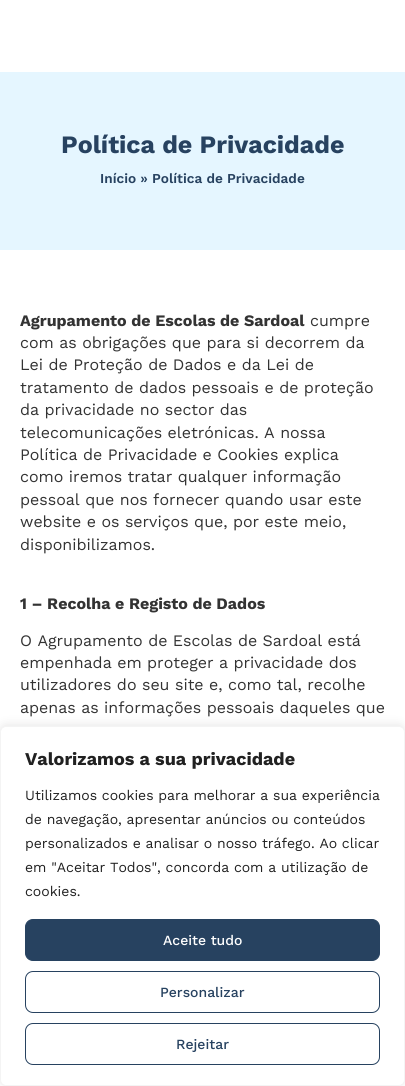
#include <cairo.h>
#include <math.h>
#include <stddef.h>


static void round_rect(cairo_t *cr, double x, double y, double w, double h, double r) {
    cairo_new_sub_path(cr);
    cairo_arc(cr, x + w - r, y + h - r, r, 0, M_PI / 2);
    cairo_arc(cr, x + r, y + h - r, r, M_PI / 2, M_PI);
    cairo_arc(cr, x + r, y + r, r, M_PI, 1.5 * M_PI);
    cairo_arc(cr, x + w - r, y + r, r, 1.5 * M_PI, 2 * M_PI);
    cairo_close_path(cr);
}

static void shadow(cairo_t *cr, double x, double y, double w, double h, double r, double blur, double alpha) {
    cairo_push_group_with_content(cr, CAIRO_CONTENT_ALPHA);
    cairo_set_operator(cr, CAIRO_OPERATOR_SOURCE);
    for (int i = 15; i >= -15 && fmin(w, h) + blur * i / 3 > 0; i -= 2) {
        double e = blur * i / 6;
        cairo_set_source_rgba(cr, 0, 0, 0, alpha * erfc((i - 1) / 8.5) / 2);
        round_rect(cr, x - e, y - e, w + 2 * e, h + 2 * e, fmax(0, fmin(r + e + blur * .6, fmin(w, h) / 2 + e)));
        cairo_fill(cr);
    }
    cairo_pattern_t *soft = cairo_pop_group(cr);
    cairo_mask(cr, soft);
    cairo_pattern_destroy(soft);
}

int main(void) {
    cairo_surface_t *surface = cairo_image_surface_create(CAIRO_FORMAT_RGB24, 405, 1086);
    cairo_t *cr = cairo_create(surface);
    cairo_font_options_t *options = cairo_font_options_create();
    cairo_font_options_set_hint_metrics(options, CAIRO_HINT_METRICS_OFF);
    cairo_font_options_set_hint_style(options, CAIRO_HINT_STYLE_NONE);
    cairo_set_font_options(cr, options);
    cairo_set_miter_limit(cr, 4);
    cairo_set_source_rgb(cr, 1, 1, 1);
    cairo_paint(cr);
    cairo_set_source_rgb(cr, 0.898, 0.961, 1);
    cairo_rectangle(cr, 0, 72, 405, 178);
    cairo_fill(cr);
    cairo_select_font_face(cr, "Work Sans", CAIRO_FONT_SLANT_NORMAL, CAIRO_FONT_WEIGHT_BOLD);
    cairo_set_font_size(cr, 25);
    cairo_set_source_rgb(cr, 0.153, 0.259, 0.376);
    cairo_move_to(cr, 61, 153);
    cairo_show_text(cr, "Política de Privacidade");
    cairo_select_font_face(cr, "Work Sans SemiBold", CAIRO_FONT_SLANT_NORMAL, CAIRO_FONT_WEIGHT_NORMAL);
    cairo_set_font_size(cr, 13.6);
    cairo_move_to(cr, 100, 183);
    cairo_show_text(cr, "Início » Política de Privacidade");
    cairo_select_font_face(cr, "Work Sans", CAIRO_FONT_SLANT_NORMAL, CAIRO_FONT_WEIGHT_BOLD);
    cairo_set_font_size(cr, 16);
    cairo_set_source_rgb(cr, 0.2, 0.2, 0.2);
    cairo_move_to(cr, 20, 326);
    cairo_show_text(cr, "Agrupamento de Escolas de Sardoal");
    cairo_select_font_face(cr, "Work Sans", CAIRO_FONT_SLANT_NORMAL, CAIRO_FONT_WEIGHT_NORMAL);
    cairo_move_to(cr, 310, 326);
    cairo_show_text(cr, "cumpre");
    cairo_move_to(cr, 20, 348);
    cairo_show_text(cr, "com as obrigações que para si decorrem da");
    cairo_move_to(cr, 20, 370);
    cairo_show_text(cr, "Lei de Proteção de Dados e da Lei de");
    cairo_move_to(cr, 20, 393);
    cairo_show_text(cr, "tratamento de dados pessoais e de proteção");
    cairo_move_to(cr, 20, 415);
    cairo_show_text(cr, "da privacidade no sector das");
    cairo_move_to(cr, 20, 438);
    cairo_show_text(cr, "telecomunicações eletrónicas. A nossa");
    cairo_move_to(cr, 20, 460);
    cairo_show_text(cr, "Política de Privacidade e Cookies explica");
    cairo_move_to(cr, 20, 482);
    cairo_show_text(cr, "como iremos tratar qualquer informação");
    cairo_move_to(cr, 20, 505);
    cairo_show_text(cr, "pessoal que nos fornecer quando usar este");
    cairo_move_to(cr, 20, 527);
    cairo_show_text(cr, "website e os serviços que, por este meio,");
    cairo_move_to(cr, 20, 550);
    cairo_show_text(cr, "disponibilizamos.");
    cairo_select_font_face(cr, "Work Sans", CAIRO_FONT_SLANT_NORMAL, CAIRO_FONT_WEIGHT_BOLD);
    cairo_move_to(cr, 20, 609);
    cairo_show_text(cr, "1 – Recolha e Registo de Dados");
    cairo_select_font_face(cr, "Work Sans", CAIRO_FONT_SLANT_NORMAL, CAIRO_FONT_WEIGHT_NORMAL);
    cairo_move_to(cr, 20, 646);
    cairo_show_text(cr, "O Agrupamento de Escolas de Sardoal está");
    cairo_move_to(cr, 20, 668);
    cairo_show_text(cr, "empenhada em proteger a privacidade dos");
    cairo_move_to(cr, 20, 690);
    cairo_show_text(cr, "utilizadores do seu site e, como tal, recolhe");
    cairo_move_to(cr, 20, 713);
    cairo_show_text(cr, "apenas as informações pessoais daqueles que");
    cairo_set_source_rgb(cr, 0.675, 0.671, 0.671);
    shadow(cr, 0, 725, 405, 360, 6, 5, 0.3);
    cairo_set_source_rgb(cr, 1, 1, 1);
    round_rect(cr, 0.5, 726.5, 404, 359, 5.5);
    cairo_fill_preserve(cr);
    cairo_set_source_rgb(cr, 0.957, 0.957, 0.957);
    cairo_set_line_width(cr, 1);
    cairo_stroke(cr);
    cairo_select_font_face(cr, "Work Sans", CAIRO_FONT_SLANT_NORMAL, CAIRO_FONT_WEIGHT_BOLD);
    cairo_set_font_size(cr, 18);
    cairo_set_source_rgb(cr, 0.129, 0.129, 0.129);
    cairo_move_to(cr, 25, 765);
    cairo_show_text(cr, "Valorizamos a sua privacidade");
    cairo_select_font_face(cr, "Work Sans", CAIRO_FONT_SLANT_NORMAL, CAIRO_FONT_WEIGHT_NORMAL);
    cairo_set_font_size(cr, 14);
    cairo_move_to(cr, 25, 800);
    cairo_show_text(cr, "Utilizamos cookies para melhorar a sua experiência");
    cairo_move_to(cr, 25, 824);
    cairo_show_text(cr, "de navegação, apresentar anúncios ou conteúdos");
    cairo_move_to(cr, 25, 848);
    cairo_show_text(cr, "personalizados e analisar o nosso tráfego. Ao clicar");
    cairo_move_to(cr, 25, 872);
    cairo_show_text(cr, "em \"Aceitar Todos\", concorda com a utilização de");
    cairo_move_to(cr, 25, 896);
    cairo_show_text(cr, "cookies.");
    cairo_set_source_rgb(cr, 0.153, 0.259, 0.376);
    round_rect(cr, 25.5, 919.5, 354, 41, 7.5);
    cairo_fill_preserve(cr);
    cairo_stroke(cr);
    cairo_select_font_face(cr, "Work Sans Medium", CAIRO_FONT_SLANT_NORMAL, CAIRO_FONT_WEIGHT_NORMAL);
    cairo_set_source_rgb(cr, 1, 1, 1);
    cairo_move_to(cr, 163, 945);
    cairo_show_text(cr, "Aceite tudo");
    round_rect(cr, 25.5, 971.5, 354, 41, 7.5);
    cairo_set_source_rgb(cr, 0.153, 0.259, 0.376);
    cairo_stroke(cr);
    cairo_move_to(cr, 160, 997);
    cairo_show_text(cr, "Personalizar");
    round_rect(cr, 25.5, 1023.5, 354, 41, 7.5);
    cairo_stroke(cr);
    cairo_move_to(cr, 176, 1049);
    cairo_show_text(cr, "Rejeitar");
    cairo_surface_write_to_png(surface, "page.png");
    cairo_font_options_destroy(options);
    cairo_destroy(cr);
    cairo_surface_destroy(surface);
    return 0;
}
